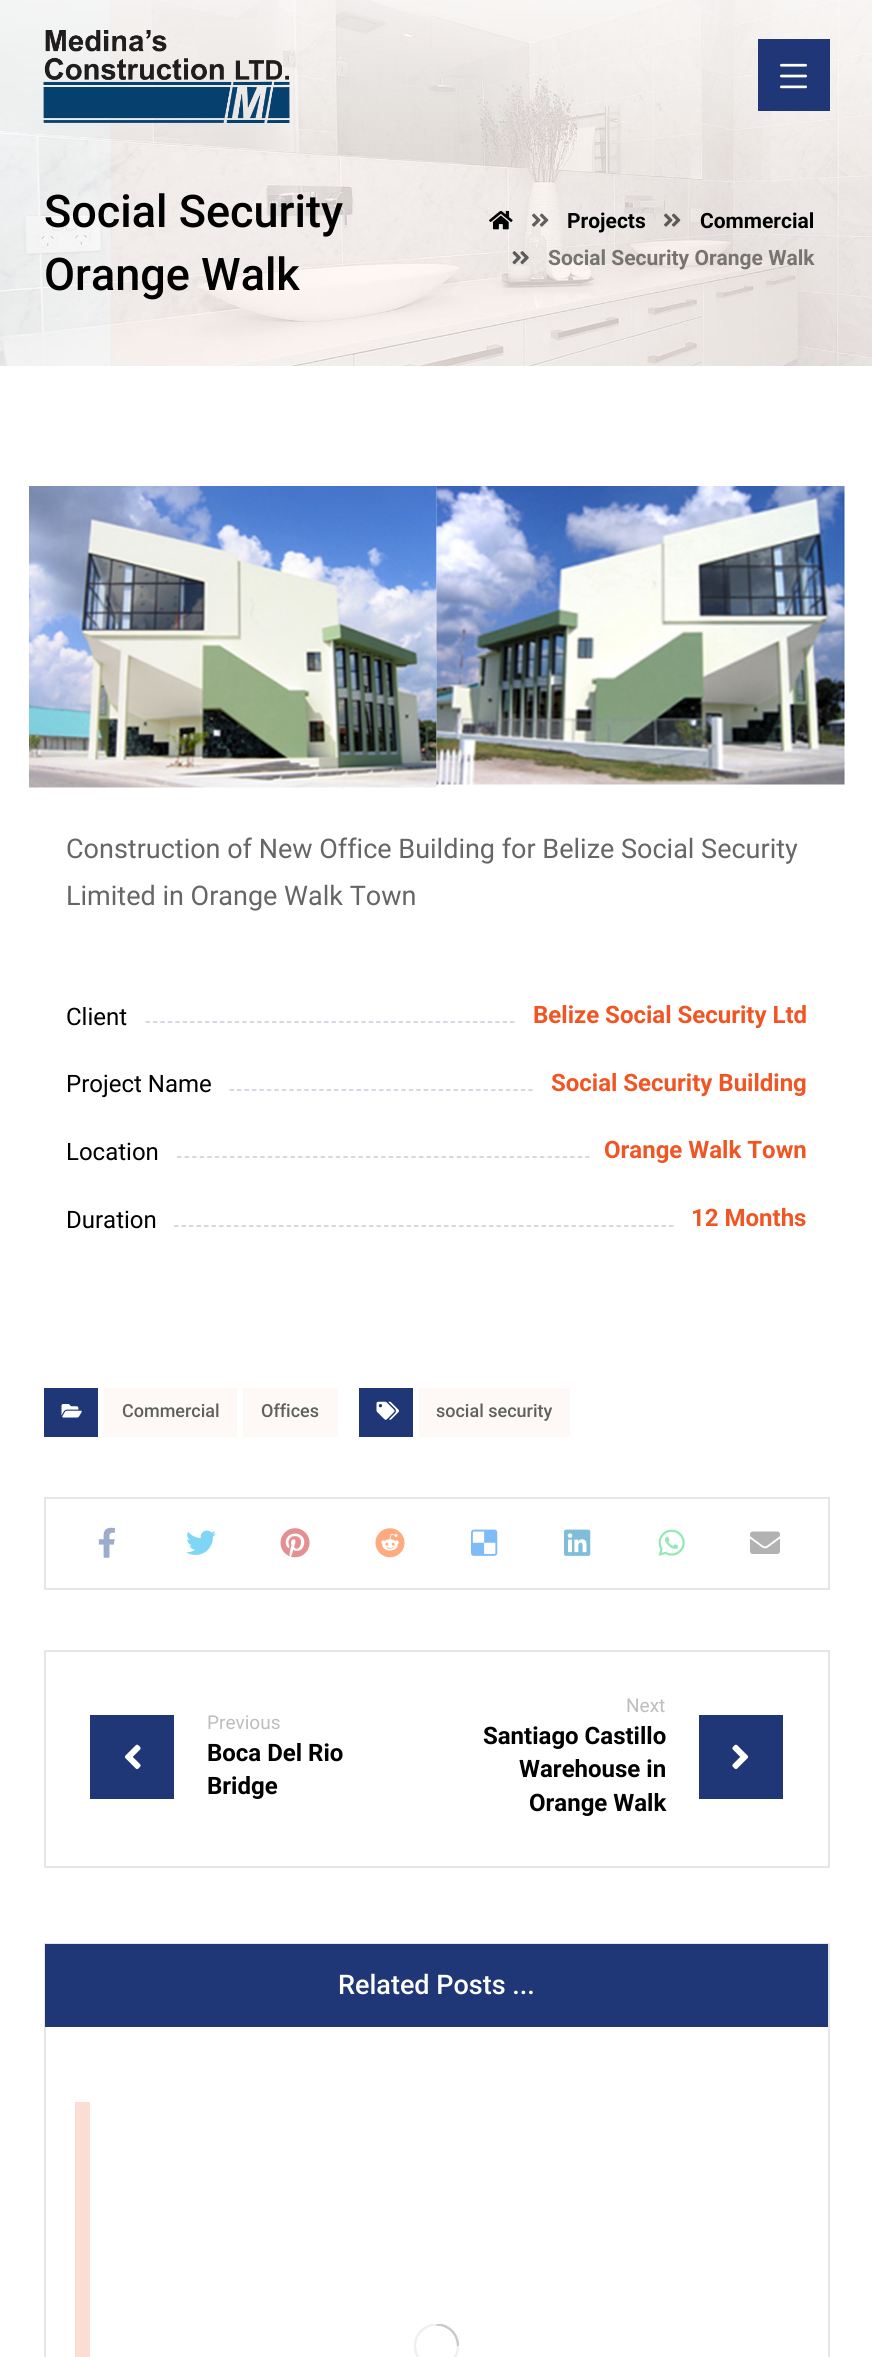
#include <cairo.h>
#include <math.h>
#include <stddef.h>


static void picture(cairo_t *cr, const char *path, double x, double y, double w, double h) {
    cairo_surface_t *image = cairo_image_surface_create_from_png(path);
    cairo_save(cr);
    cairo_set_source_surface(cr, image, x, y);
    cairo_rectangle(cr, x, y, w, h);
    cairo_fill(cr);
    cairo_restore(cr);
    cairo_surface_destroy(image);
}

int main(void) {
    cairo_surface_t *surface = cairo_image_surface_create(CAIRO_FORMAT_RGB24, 872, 2357);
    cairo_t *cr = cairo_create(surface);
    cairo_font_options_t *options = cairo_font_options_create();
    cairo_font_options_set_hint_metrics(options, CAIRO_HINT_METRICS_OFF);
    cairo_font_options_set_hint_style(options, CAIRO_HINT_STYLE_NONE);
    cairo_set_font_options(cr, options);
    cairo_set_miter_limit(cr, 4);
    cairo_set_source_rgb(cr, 1, 1, 1);
    cairo_paint(cr);
    picture(cr, "img3.png", 0, 0, 872, 366);
    picture(cr, "img1.png", 43, 30, 247, 93);
    cairo_set_source_rgb(cr, 0.122, 0.216, 0.467);
    cairo_rectangle(cr, 758, 39, 72, 72);
    cairo_fill(cr);
    picture(cr, "img2.png", 780, 63, 27, 26);
    cairo_select_font_face(cr, "Roboto Medium", CAIRO_FONT_SLANT_NORMAL, CAIRO_FONT_WEIGHT_NORMAL);
    cairo_set_font_size(cr, 45);
    cairo_set_source_rgb(cr, 0, 0, 0);
    cairo_move_to(cr, 44, 227);
    cairo_show_text(cr, "Social Security");
    cairo_move_to(cr, 44, 290);
    cairo_show_text(cr, "Orange Walk");
    picture(cr, "img4.png", 489, 210, 24, 20);
    picture(cr, "img5.png", 532, 213, 17, 14);
    cairo_select_font_face(cr, "Roboto", CAIRO_FONT_SLANT_NORMAL, CAIRO_FONT_WEIGHT_BOLD);
    cairo_set_font_size(cr, 21);
    cairo_move_to(cr, 567, 228);
    cairo_show_text(cr, "Projects");
    picture(cr, "img6.png", 664, 213, 17, 14);
    cairo_move_to(cr, 700, 228);
    cairo_show_text(cr, "Commercial");
    picture(cr, "img7.png", 512, 251, 17, 14);
    cairo_set_source_rgb(cr, 0.463, 0.451, 0.443);
    cairo_move_to(cr, 548, 265);
    cairo_show_text(cr, "Social Security Orange Walk");
    picture(cr, "img8.png", 29, 486, 408, 302);
    picture(cr, "img9.png", 436, 486, 409, 299);
    cairo_select_font_face(cr, "Roboto", CAIRO_FONT_SLANT_NORMAL, CAIRO_FONT_WEIGHT_NORMAL);
    cairo_set_font_size(cr, 27);
    cairo_set_source_rgb(cr, 0.4, 0.4, 0.4);
    cairo_move_to(cr, 66, 858);
    cairo_show_text(cr, "Construction of New Office Building for Belize Social Security");
    cairo_move_to(cr, 66, 905);
    cairo_show_text(cr, "Limited in Orange Walk Town");
    cairo_set_font_size(cr, 24);
    cairo_set_source_rgb(cr, 0, 0, 0);
    cairo_move_to(cr, 66, 1025);
    cairo_show_text(cr, "Client");
    cairo_select_font_face(cr, "Roboto", CAIRO_FONT_SLANT_NORMAL, CAIRO_FONT_WEIGHT_BOLD);
    cairo_set_source_rgb(cr, 0.945, 0.333, 0.141);
    cairo_move_to(cr, 533, 1023);
    cairo_show_text(cr, "Belize Social Security Ltd");
    cairo_new_path(cr);
    cairo_move_to(cr, 145.5, 1022);
    cairo_line_to(cr, 514.5, 1022);
    cairo_set_source_rgb(cr, 0.78, 0.804, 0.867);
    cairo_set_line_width(cr, 1.5);
    cairo_set_dash(cr, (double[]){4.5, 2.94}, 2, 0);
    cairo_stroke(cr);
    cairo_select_font_face(cr, "Roboto", CAIRO_FONT_SLANT_NORMAL, CAIRO_FONT_WEIGHT_NORMAL);
    cairo_set_source_rgb(cr, 0, 0, 0);
    cairo_move_to(cr, 66, 1092);
    cairo_show_text(cr, "Project Name");
    cairo_select_font_face(cr, "Roboto", CAIRO_FONT_SLANT_NORMAL, CAIRO_FONT_WEIGHT_BOLD);
    cairo_set_source_rgb(cr, 0.945, 0.333, 0.141);
    cairo_move_to(cr, 551, 1091);
    cairo_show_text(cr, "Social Security Building");
    cairo_new_path(cr);
    cairo_move_to(cr, 229.5, 1090);
    cairo_line_to(cr, 532.5, 1090);
    cairo_set_source_rgb(cr, 0.78, 0.804, 0.867);
    cairo_set_dash(cr, (double[]){4.5, 2.97}, 2, 0);
    cairo_stroke(cr);
    cairo_select_font_face(cr, "Roboto", CAIRO_FONT_SLANT_NORMAL, CAIRO_FONT_WEIGHT_NORMAL);
    cairo_set_source_rgb(cr, 0, 0, 0);
    cairo_move_to(cr, 66, 1160);
    cairo_show_text(cr, "Location");
    cairo_select_font_face(cr, "Roboto", CAIRO_FONT_SLANT_NORMAL, CAIRO_FONT_WEIGHT_BOLD);
    cairo_set_source_rgb(cr, 0.945, 0.333, 0.141);
    cairo_move_to(cr, 604, 1158);
    cairo_show_text(cr, "Orange Walk Town");
    cairo_new_path(cr);
    cairo_move_to(cr, 177, 1157);
    cairo_line_to(cr, 589.5, 1157);
    cairo_set_source_rgb(cr, 0.78, 0.804, 0.867);
    cairo_set_dash(cr, (double[]){4.5, 3.06}, 2, 0);
    cairo_stroke(cr);
    cairo_select_font_face(cr, "Roboto", CAIRO_FONT_SLANT_NORMAL, CAIRO_FONT_WEIGHT_NORMAL);
    cairo_set_source_rgb(cr, 0, 0, 0);
    cairo_move_to(cr, 66, 1228);
    cairo_show_text(cr, "Duration");
    cairo_select_font_face(cr, "Roboto", CAIRO_FONT_SLANT_NORMAL, CAIRO_FONT_WEIGHT_BOLD);
    cairo_set_source_rgb(cr, 0.945, 0.333, 0.141);
    cairo_move_to(cr, 691, 1226);
    cairo_show_text(cr, "12 Months");
    cairo_new_path(cr);
    cairo_move_to(cr, 174, 1226);
    cairo_line_to(cr, 673.5, 1226);
    cairo_set_source_rgb(cr, 0.78, 0.804, 0.867);
    cairo_set_dash(cr, (double[]){4.5, 3}, 2, 0);
    cairo_stroke(cr);
    cairo_set_source_rgb(cr, 0.122, 0.216, 0.467);
    cairo_rectangle(cr, 44, 1388, 54, 49);
    cairo_fill(cr);
    picture(cr, "img10.png", 61, 1404, 21, 14);
    cairo_set_source_rgb(cr, 0.996, 0.973, 0.965);
    cairo_rectangle(cr, 104, 1388, 133, 49);
    cairo_fill(cr);
    cairo_select_font_face(cr, "Roboto Medium", CAIRO_FONT_SLANT_NORMAL, CAIRO_FONT_WEIGHT_NORMAL);
    cairo_set_font_size(cr, 18);
    cairo_set_source_rgb(cr, 0.376, 0.376, 0.376);
    cairo_move_to(cr, 122, 1417);
    cairo_show_text(cr, "Commercial");
    cairo_set_source_rgb(cr, 0.996, 0.973, 0.965);
    cairo_rectangle(cr, 243, 1388, 95, 49);
    cairo_fill(cr);
    cairo_set_source_rgb(cr, 0.376, 0.376, 0.376);
    cairo_move_to(cr, 261, 1417);
    cairo_show_text(cr, "Offices");
    cairo_set_source_rgb(cr, 0.122, 0.216, 0.467);
    cairo_rectangle(cr, 359, 1388, 54, 49);
    cairo_fill(cr);
    picture(cr, "img11.png", 376, 1401, 23, 19);
    cairo_set_source_rgb(cr, 0.996, 0.973, 0.965);
    cairo_rectangle(cr, 419, 1388, 151, 49);
    cairo_fill(cr);
    cairo_set_source_rgb(cr, 0.376, 0.376, 0.376);
    cairo_move_to(cr, 436, 1417);
    cairo_show_text(cr, "social security");
    cairo_rectangle(cr, 45, 1498, 784, 91);
    cairo_set_source_rgb(cr, 0.902, 0.902, 0.902);
    cairo_set_line_width(cr, 2);
    cairo_set_dash(cr, NULL, 0, 0);
    cairo_stroke(cr);
    picture(cr, "img12.png", 98, 1527, 17, 31);
    picture(cr, "img13.png", 186, 1530, 30, 25);
    picture(cr, "img14.png", 280, 1528, 30, 30);
    picture(cr, "img15.png", 375, 1528, 30, 30);
    picture(cr, "img16.png", 471, 1529, 27, 27);
    picture(cr, "img17.png", 564, 1529, 27, 27);
    picture(cr, "img18.png", 658, 1529, 27, 27);
    picture(cr, "img19.png", 750, 1531, 30, 23);
    cairo_rectangle(cr, 45, 1651, 784, 216);
    cairo_stroke(cr);
    cairo_set_source_rgb(cr, 0.122, 0.216, 0.467);
    cairo_rectangle(cr, 90, 1715, 84, 84);
    cairo_fill(cr);
    picture(cr, "img20.png", 124, 1744, 17, 25);
    cairo_select_font_face(cr, "Roboto", CAIRO_FONT_SLANT_NORMAL, CAIRO_FONT_WEIGHT_NORMAL);
    cairo_set_font_size(cr, 19);
    cairo_set_source_rgb(cr, 0.741, 0.741, 0.741);
    cairo_move_to(cr, 207, 1729);
    cairo_show_text(cr, "Previous");
    cairo_select_font_face(cr, "Roboto", CAIRO_FONT_SLANT_NORMAL, CAIRO_FONT_WEIGHT_BOLD);
    cairo_set_font_size(cr, 24);
    cairo_set_source_rgb(cr, 0, 0, 0);
    cairo_move_to(cr, 207, 1761);
    cairo_show_text(cr, "Boca Del Rio");
    cairo_move_to(cr, 207, 1794);
    cairo_show_text(cr, "Bridge");
    cairo_select_font_face(cr, "Roboto", CAIRO_FONT_SLANT_NORMAL, CAIRO_FONT_WEIGHT_NORMAL);
    cairo_set_font_size(cr, 19);
    cairo_set_source_rgb(cr, 0.741, 0.741, 0.741);
    cairo_move_to(cr, 626, 1712);
    cairo_show_text(cr, "Next");
    cairo_select_font_face(cr, "Roboto", CAIRO_FONT_SLANT_NORMAL, CAIRO_FONT_WEIGHT_BOLD);
    cairo_set_font_size(cr, 24);
    cairo_set_source_rgb(cr, 0, 0, 0);
    cairo_move_to(cr, 483, 1744);
    cairo_show_text(cr, "Santiago Castillo");
    cairo_move_to(cr, 519, 1777);
    cairo_show_text(cr, "Warehouse in");
    cairo_move_to(cr, 529, 1811);
    cairo_show_text(cr, "Orange Walk");
    cairo_set_source_rgb(cr, 0.122, 0.216, 0.467);
    cairo_rectangle(cr, 699, 1715, 84, 84);
    cairo_fill(cr);
    picture(cr, "img21.png", 732, 1744, 17, 25);
    cairo_rectangle(cr, 45, 1944, 784, 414);
    cairo_set_source_rgb(cr, 0.902, 0.902, 0.902);
    cairo_stroke(cr);
    cairo_set_source_rgb(cr, 0.122, 0.216, 0.467);
    cairo_rectangle(cr, 45, 1944, 783, 83);
    cairo_fill(cr);
    cairo_select_font_face(cr, "Roboto Medium", CAIRO_FONT_SLANT_NORMAL, CAIRO_FONT_WEIGHT_NORMAL);
    cairo_set_font_size(cr, 27);
    cairo_set_source_rgb(cr, 1, 1, 1);
    cairo_move_to(cr, 338, 1994);
    cairo_show_text(cr, "Related Posts ...");
    cairo_set_source_rgb(cr, 0.988, 0.867, 0.827);
    cairo_new_path(cr);
    cairo_move_to(cr, 75, 2102);
    cairo_line_to(cr, 75, 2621);
    cairo_line_to(cr, 768, 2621);
    cairo_line_to(cr, 768, 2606);
    cairo_line_to(cr, 90, 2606);
    cairo_line_to(cr, 90, 2102);
    cairo_close_path(cr);
    cairo_fill(cr);
    cairo_save(cr);
    cairo_rectangle(cr, 414, 2324, 45, 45);
    cairo_clip(cr);
    cairo_arc(cr, 436.5, 2346, 21.5, 0, 2 * M_PI);
    cairo_set_source_rgb(cr, 0.937, 0.937, 0.937);
    cairo_set_line_width(cr, 2.4);
    cairo_stroke(cr);
    cairo_new_path(cr);
    cairo_move_to(cr, 458, 2346);
    cairo_curve_to(cr, 458, 2334, 448.5, 2324.5, 436.5, 2324.5);
    cairo_set_source_rgb(cr, 0.792, 0.792, 0.792);
    cairo_stroke(cr);
    cairo_restore(cr);
    cairo_surface_write_to_png(surface, "page.png");
    cairo_font_options_destroy(options);
    cairo_destroy(cr);
    cairo_surface_destroy(surface);
    return 0;
}
